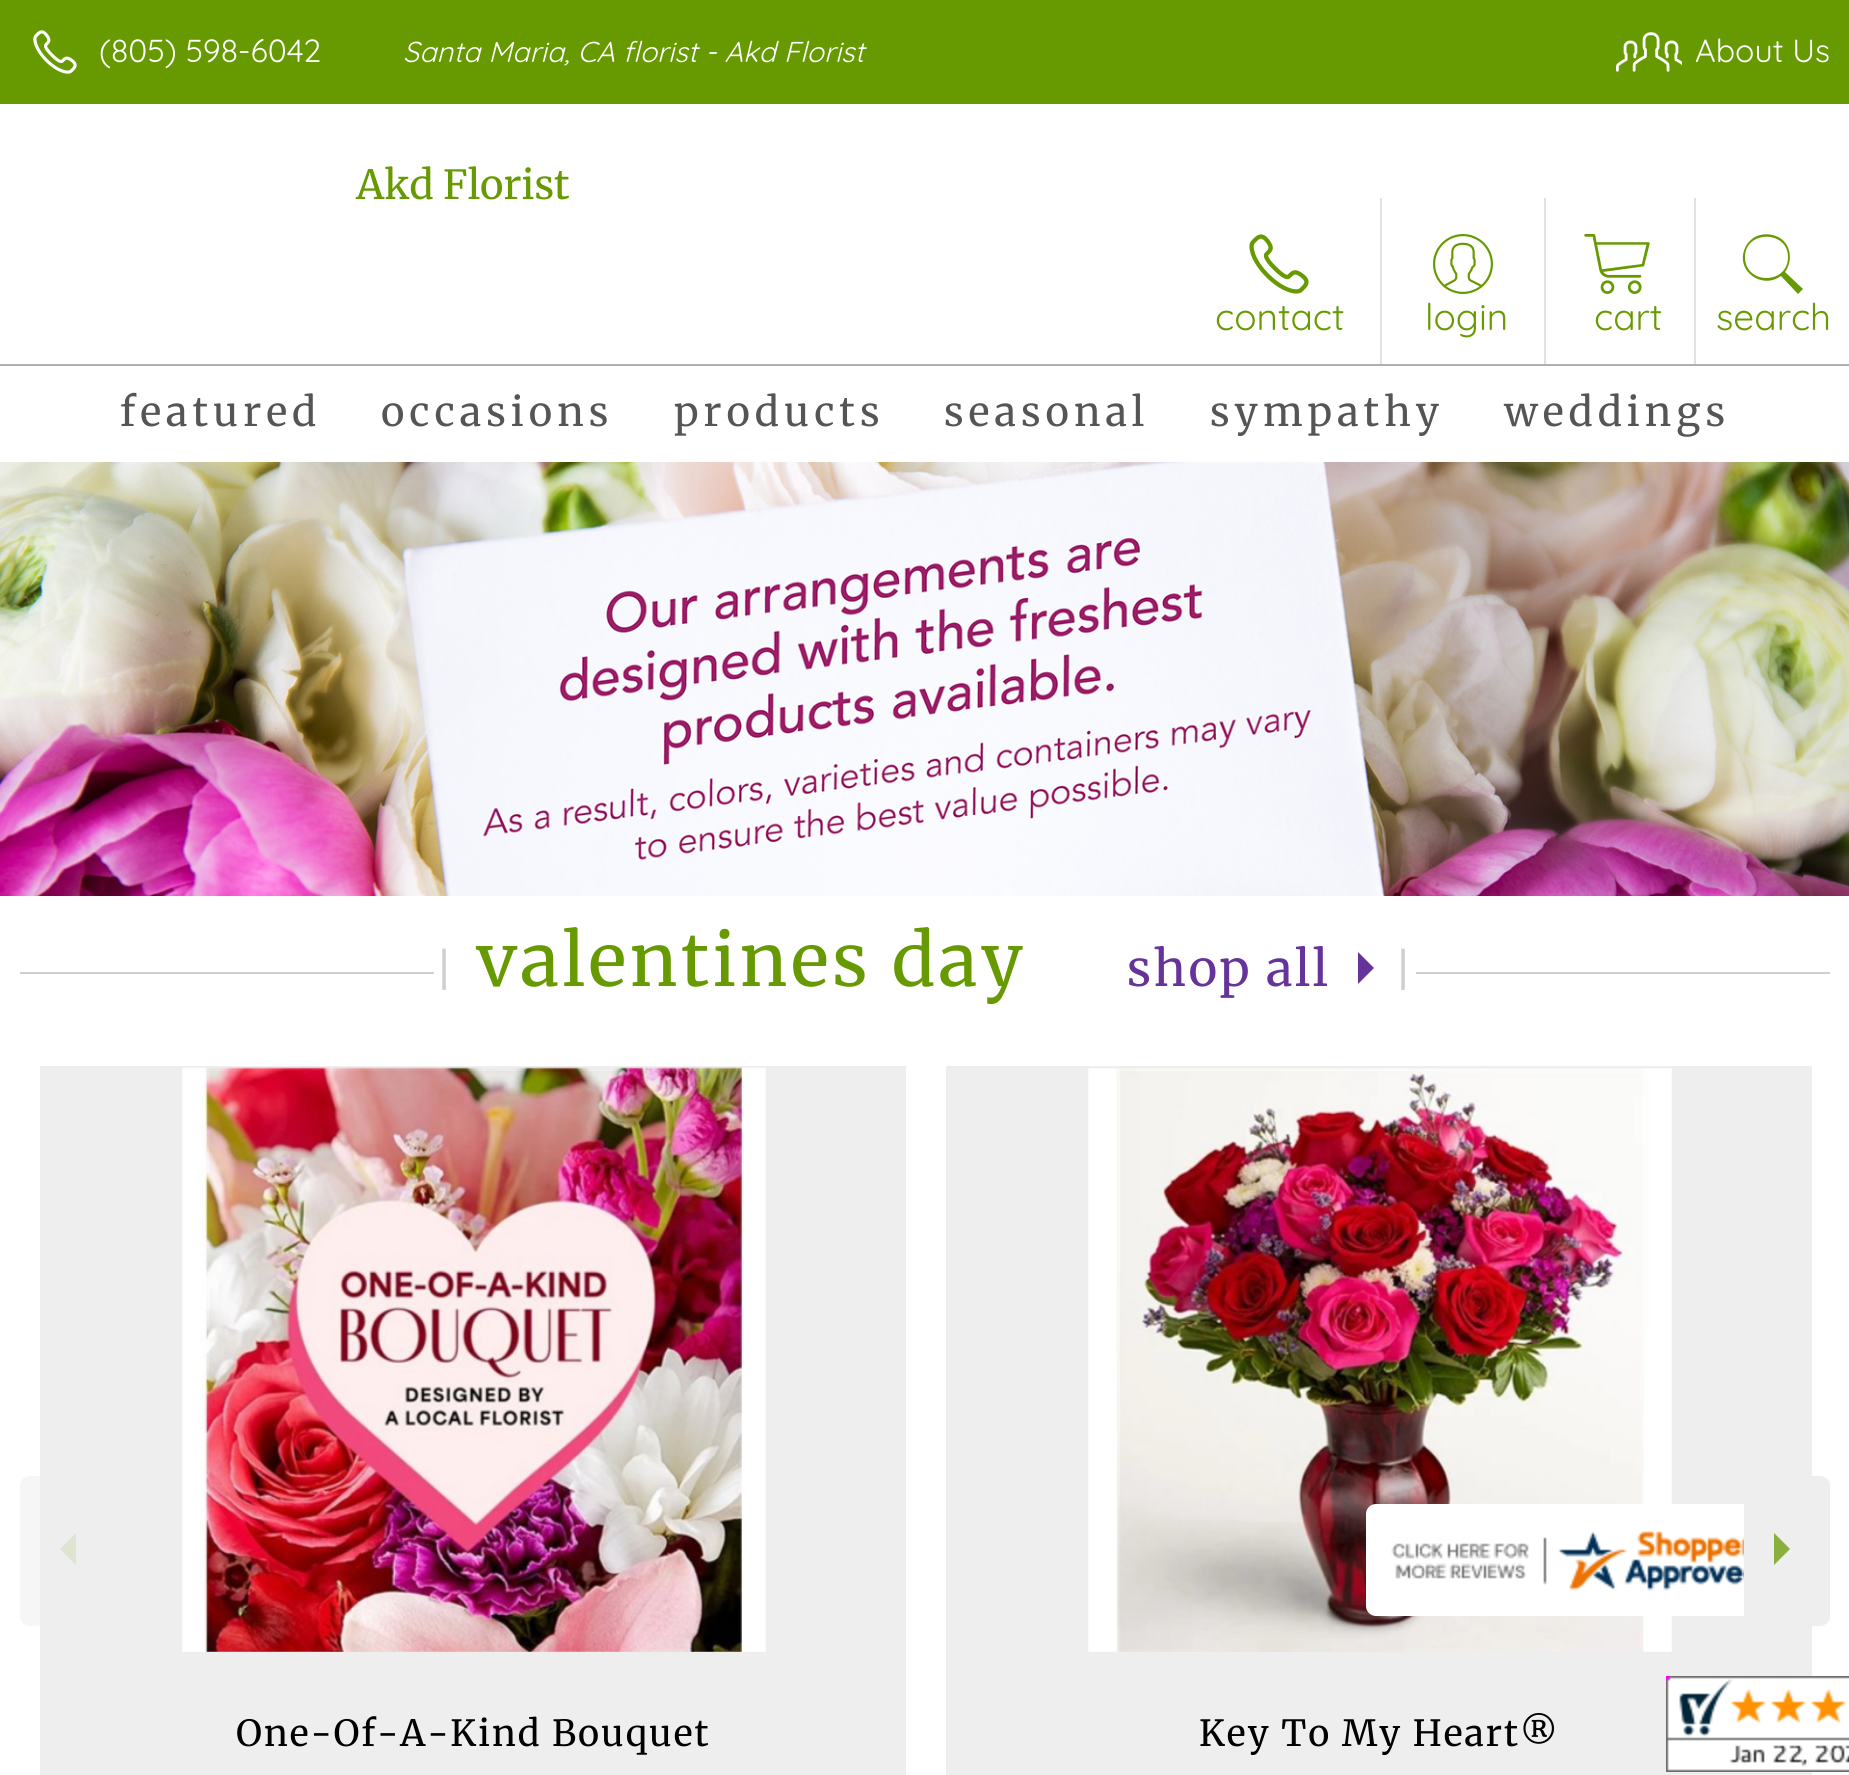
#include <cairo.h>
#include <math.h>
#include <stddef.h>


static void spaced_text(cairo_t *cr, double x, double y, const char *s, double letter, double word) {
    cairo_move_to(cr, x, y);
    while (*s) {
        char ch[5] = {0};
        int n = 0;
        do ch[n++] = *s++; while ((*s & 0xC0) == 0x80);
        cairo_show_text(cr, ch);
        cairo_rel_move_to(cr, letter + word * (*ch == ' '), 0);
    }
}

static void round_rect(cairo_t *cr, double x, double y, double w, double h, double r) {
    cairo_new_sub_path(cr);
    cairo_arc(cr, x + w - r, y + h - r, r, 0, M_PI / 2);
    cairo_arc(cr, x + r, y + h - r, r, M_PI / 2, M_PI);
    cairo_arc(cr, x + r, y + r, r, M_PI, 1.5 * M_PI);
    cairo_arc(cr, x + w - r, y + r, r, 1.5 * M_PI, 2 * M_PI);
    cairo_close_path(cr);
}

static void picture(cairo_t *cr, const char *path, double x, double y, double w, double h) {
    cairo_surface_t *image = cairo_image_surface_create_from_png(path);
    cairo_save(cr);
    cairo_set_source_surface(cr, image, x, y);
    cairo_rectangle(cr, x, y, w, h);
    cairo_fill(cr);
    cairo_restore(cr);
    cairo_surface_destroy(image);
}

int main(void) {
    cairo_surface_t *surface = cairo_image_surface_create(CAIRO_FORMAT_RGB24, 1849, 1775);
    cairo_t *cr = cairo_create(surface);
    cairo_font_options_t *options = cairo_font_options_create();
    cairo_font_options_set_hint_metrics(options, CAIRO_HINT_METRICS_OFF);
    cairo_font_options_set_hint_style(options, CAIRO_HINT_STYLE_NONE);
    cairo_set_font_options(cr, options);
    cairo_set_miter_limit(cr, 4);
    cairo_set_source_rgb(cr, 1, 1, 1);
    cairo_paint(cr);
    cairo_set_source_rgb(cr, 0.404, 0.604, 0.004);
    cairo_rectangle(cr, 0, 0, 1849, 104);
    cairo_fill(cr);
    picture(cr, "img1.png", 33, 30, 44, 44);
    cairo_select_font_face(cr, "Quicksand", CAIRO_FONT_SLANT_NORMAL, CAIRO_FONT_WEIGHT_NORMAL);
    cairo_set_font_size(cr, 32);
    cairo_set_source_rgb(cr, 1, 1, 1);
    cairo_move_to(cr, 99, 62);
    cairo_show_text(cr, "(805) 598-6042");
    cairo_select_font_face(cr, "Quicksand", CAIRO_FONT_SLANT_ITALIC, CAIRO_FONT_WEIGHT_NORMAL);
    cairo_set_font_size(cr, 28.75);
    cairo_move_to(cr, 403, 62);
    cairo_show_text(cr, "Santa Maria, CA florist - Akd Florist");
    picture(cr, "img2.png", 1616, 32, 66, 40);
    cairo_select_font_face(cr, "Quicksand", CAIRO_FONT_SLANT_NORMAL, CAIRO_FONT_WEIGHT_NORMAL);
    cairo_set_font_size(cr, 32);
    cairo_move_to(cr, 1695, 62);
    cairo_show_text(cr, "About Us");
    cairo_select_font_face(cr, "Merriweather", CAIRO_FONT_SLANT_NORMAL, CAIRO_FONT_WEIGHT_NORMAL);
    cairo_set_font_size(cr, 40);
    cairo_set_source_rgb(cr, 0.404, 0.604, 0.004);
    cairo_move_to(cr, 356, 199);
    cairo_show_text(cr, "Akd Florist");
    picture(cr, "img3.png", 1249, 234, 60, 60);
    cairo_select_font_face(cr, "Quicksand", CAIRO_FONT_SLANT_NORMAL, CAIRO_FONT_WEIGHT_NORMAL);
    cairo_set_font_size(cr, 37);
    cairo_move_to(cr, 1215, 330);
    cairo_show_text(cr, "contact");
    cairo_set_source_rgb(cr, 0.882, 0.882, 0.882);
    cairo_rectangle(cr, 1544, 198, 2, 166);
    cairo_fill(cr);
    cairo_rectangle(cr, 1380, 198, 2, 166);
    cairo_fill(cr);
    picture(cr, "img4.png", 1433, 234, 60, 60);
    cairo_set_source_rgb(cr, 0.404, 0.604, 0.004);
    cairo_move_to(cr, 1425, 330);
    cairo_show_text(cr, "login");
    picture(cr, "img5.png", 1584, 234, 66, 60);
    cairo_move_to(cr, 1594, 330);
    cairo_show_text(cr, "cart");
    cairo_set_source_rgb(cr, 0.882, 0.882, 0.882);
    cairo_rectangle(cr, 1694, 198, 2, 166);
    cairo_fill(cr);
    cairo_set_source_rgb(cr, 0.404, 0.604, 0.004);
    cairo_new_path(cr);
    cairo_move_to(cr, 1803, 289);
    cairo_line_to(cr, 1785, 272);
    cairo_curve_to(cr, 1793, 261, 1791, 245, 1780, 238);
    cairo_curve_to(cr, 1773, 234, 1765, 233, 1757, 236);
    cairo_curve_to(cr, 1752, 238, 1747, 243, 1745, 248);
    cairo_curve_to(cr, 1735, 271, 1762, 290, 1781, 276);
    cairo_line_to(cr, 1798, 294);
    cairo_close_path(cr);
    cairo_move_to(cr, 1745, 257);
    cairo_curve_to(cr, 1745, 230, 1788, 230, 1788, 257);
    cairo_curve_to(cr, 1788, 285, 1745, 285, 1745, 257);
    cairo_close_path(cr);
    cairo_fill(cr);
    cairo_move_to(cr, 1716, 330);
    cairo_show_text(cr, "search");
    cairo_set_source_rgb(cr, 0.686, 0.686, 0.686);
    cairo_rectangle(cr, 0, 364, 1849, 2);
    cairo_fill(cr);
    cairo_select_font_face(cr, "Merriweather", CAIRO_FONT_SLANT_NORMAL, CAIRO_FONT_WEIGHT_NORMAL);
    cairo_set_font_size(cr, 40);
    cairo_set_source_rgb(cr, 0.333, 0.333, 0.333);
    spaced_text(cr, 120, 426, "featured", 5, 0);
    spaced_text(cr, 381, 426, "occasions", 5, 0);
    spaced_text(cr, 674, 426, "products", 5, 0);
    spaced_text(cr, 944, 426, "seasonal", 5, 0);
    spaced_text(cr, 1210, 426, "sympathy", 5, 0);
    spaced_text(cr, 1504, 426, "weddings", 5, 0);
    picture(cr, "img6.png", 0, 462, 1849, 434);
    cairo_set_source_rgb(cr, 0.812, 0.812, 0.812);
    cairo_rectangle(cr, 20, 972, 1810, 2);
    cairo_fill(cr);
    cairo_set_source_rgb(cr, 1, 1, 1);
    cairo_rectangle(cr, 434, 972, 982, 2);
    cairo_fill(cr);
    cairo_set_font_size(cr, 43);
    cairo_set_source_rgb(cr, 0.812, 0.812, 0.812);
    spaced_text(cr, 435, 986, "|", 3.6, 0);
    cairo_set_font_size(cr, 72);
    cairo_set_source_rgb(cr, 0.404, 0.604, 0.004);
    spaced_text(cr, 476, 986, "valentines day", 3.6, 0);
    cairo_set_font_size(cr, 49);
    cairo_set_source_rgb(cr, 0.4, 0.2, 0.604);
    spaced_text(cr, 1127, 986, "shop all", 2.5, 0);
    cairo_new_path(cr);
    cairo_move_to(cr, 1358, 984);
    cairo_line_to(cr, 1358, 952);
    cairo_line_to(cr, 1374, 968);
    cairo_close_path(cr);
    cairo_fill(cr);
    cairo_set_font_size(cr, 43);
    cairo_set_source_rgb(cr, 0.812, 0.812, 0.812);
    spaced_text(cr, 1394, 986, "|", 3.6, 0);
    cairo_set_source_rgb(cr, 0.933, 0.933, 0.933);
    cairo_rectangle(cr, 40, 1066, 866, 709);
    cairo_fill(cr);
    cairo_set_source_rgba(cr, 0.933, 0.933, 0.933, 0.5);
    cairo_new_path(cr);
    cairo_move_to(cr, 30, 1476);
    cairo_line_to(cr, 106, 1476);
    cairo_line_to(cr, 106, 1626);
    cairo_line_to(cr, 30, 1626);
    cairo_curve_to(cr, 24.5, 1626, 20, 1621.5, 20, 1616);
    cairo_line_to(cr, 20, 1486);
    cairo_curve_to(cr, 20, 1480.5, 24.5, 1476, 30, 1476);
    cairo_close_path(cr);
    cairo_fill(cr);
    cairo_set_source_rgb(cr, 0.867, 0.894, 0.816);
    cairo_new_path(cr);
    cairo_move_to(cr, 76, 1533);
    cairo_line_to(cr, 76, 1565);
    cairo_line_to(cr, 60, 1549);
    cairo_close_path(cr);
    cairo_fill(cr);
    cairo_set_source_rgb(cr, 0.933, 0.933, 0.933);
    cairo_rectangle(cr, 946, 1066, 866, 709);
    cairo_fill(cr);
    picture(cr, "img8.png", 1088, 1068, 584, 584);
    cairo_set_source_rgb(cr, 1, 1, 1);
    round_rect(cr, 1366, 1504, 424, 112, 10);
    cairo_fill(cr);
    cairo_set_source_rgb(cr, 0.933, 0.933, 0.933);
    cairo_new_path(cr);
    cairo_move_to(cr, 1744, 1476);
    cairo_line_to(cr, 1820, 1476);
    cairo_curve_to(cr, 1825.5, 1476, 1830, 1480.5, 1830, 1486);
    cairo_line_to(cr, 1830, 1616);
    cairo_curve_to(cr, 1830, 1621.5, 1825.5, 1626, 1820, 1626);
    cairo_line_to(cr, 1744, 1626);
    cairo_close_path(cr);
    cairo_fill(cr);
    cairo_set_source_rgb(cr, 0.537, 0.686, 0.235);
    cairo_new_path(cr);
    cairo_move_to(cr, 1774, 1565);
    cairo_line_to(cr, 1774, 1533);
    cairo_line_to(cr, 1790, 1549);
    cairo_close_path(cr);
    cairo_fill(cr);
    picture(cr, "img7.png", 182, 1067, 584, 585);
    cairo_set_font_size(cr, 36);
    cairo_set_source_rgb(cr, 0, 0, 0);
    spaced_text(cr, 236, 1746, "One-Of-A-Kind Bouquet", 2, 0);
    spaced_text(cr, 1199, 1746, "Key To My Heart®", 2, 0);
    picture(cr, "img9.png", 1391, 1531, 353, 60);
    picture(cr, "img10.png", 1666, 1676, 183, 96);
    cairo_surface_write_to_png(surface, "page.png");
    cairo_font_options_destroy(options);
    cairo_destroy(cr);
    cairo_surface_destroy(surface);
    return 0;
}
